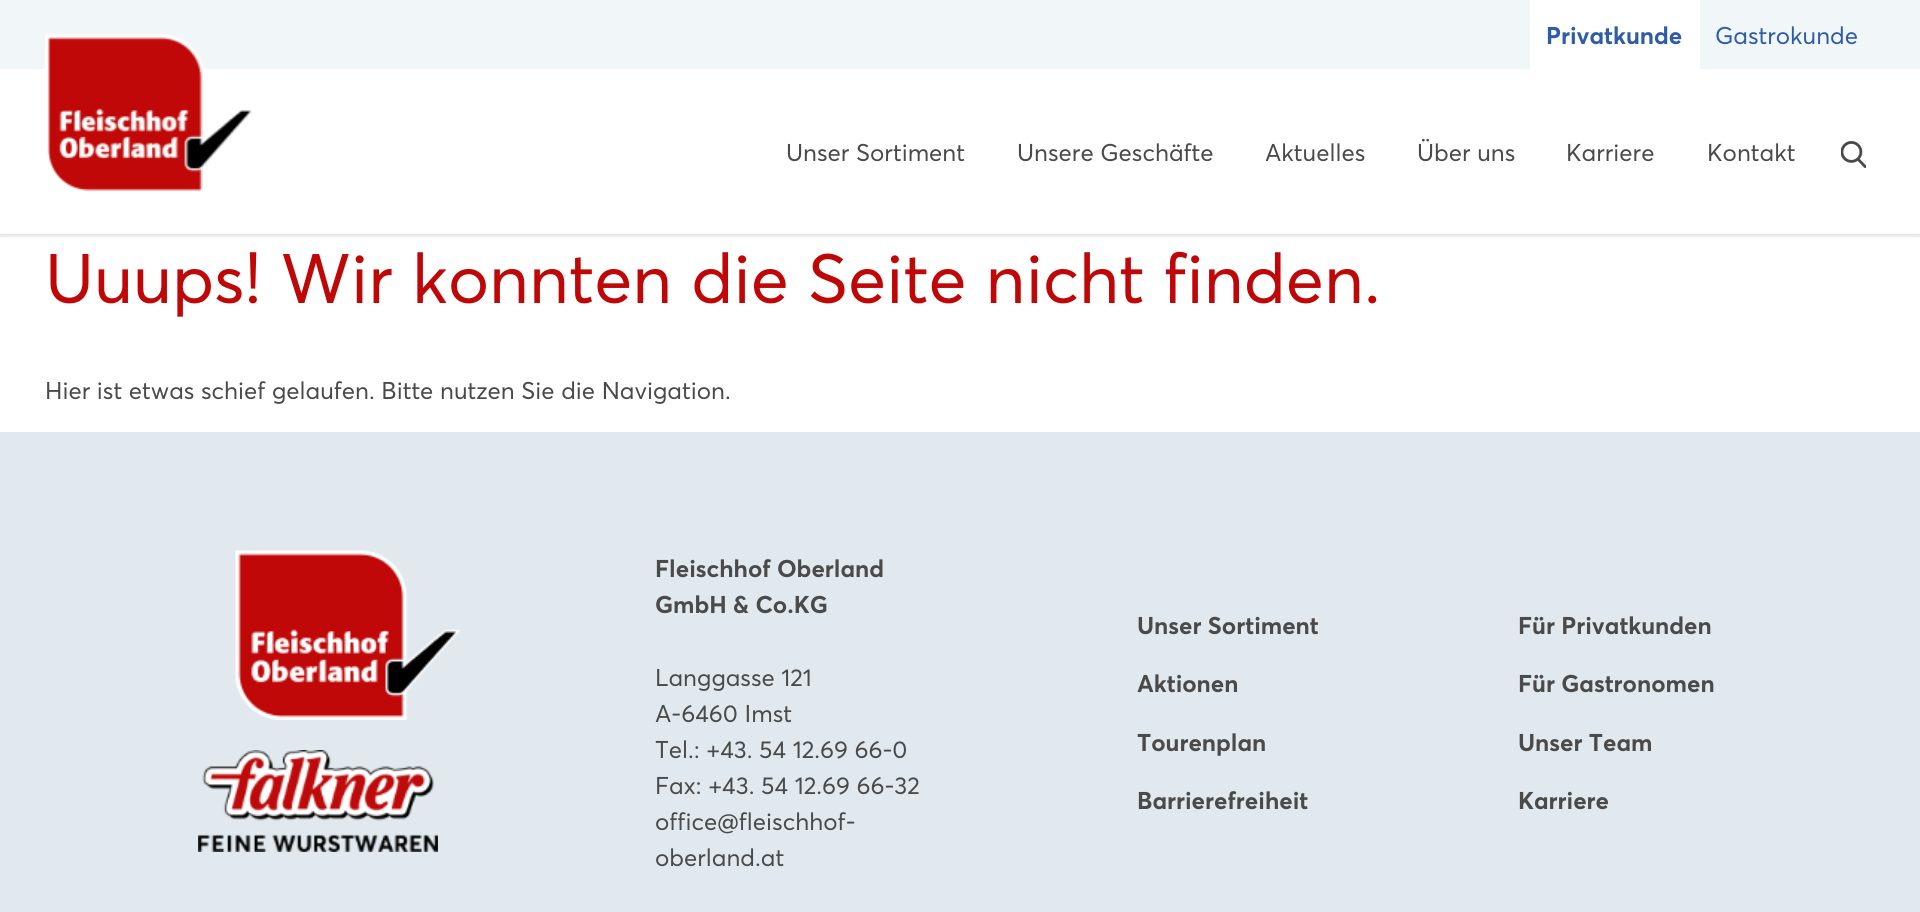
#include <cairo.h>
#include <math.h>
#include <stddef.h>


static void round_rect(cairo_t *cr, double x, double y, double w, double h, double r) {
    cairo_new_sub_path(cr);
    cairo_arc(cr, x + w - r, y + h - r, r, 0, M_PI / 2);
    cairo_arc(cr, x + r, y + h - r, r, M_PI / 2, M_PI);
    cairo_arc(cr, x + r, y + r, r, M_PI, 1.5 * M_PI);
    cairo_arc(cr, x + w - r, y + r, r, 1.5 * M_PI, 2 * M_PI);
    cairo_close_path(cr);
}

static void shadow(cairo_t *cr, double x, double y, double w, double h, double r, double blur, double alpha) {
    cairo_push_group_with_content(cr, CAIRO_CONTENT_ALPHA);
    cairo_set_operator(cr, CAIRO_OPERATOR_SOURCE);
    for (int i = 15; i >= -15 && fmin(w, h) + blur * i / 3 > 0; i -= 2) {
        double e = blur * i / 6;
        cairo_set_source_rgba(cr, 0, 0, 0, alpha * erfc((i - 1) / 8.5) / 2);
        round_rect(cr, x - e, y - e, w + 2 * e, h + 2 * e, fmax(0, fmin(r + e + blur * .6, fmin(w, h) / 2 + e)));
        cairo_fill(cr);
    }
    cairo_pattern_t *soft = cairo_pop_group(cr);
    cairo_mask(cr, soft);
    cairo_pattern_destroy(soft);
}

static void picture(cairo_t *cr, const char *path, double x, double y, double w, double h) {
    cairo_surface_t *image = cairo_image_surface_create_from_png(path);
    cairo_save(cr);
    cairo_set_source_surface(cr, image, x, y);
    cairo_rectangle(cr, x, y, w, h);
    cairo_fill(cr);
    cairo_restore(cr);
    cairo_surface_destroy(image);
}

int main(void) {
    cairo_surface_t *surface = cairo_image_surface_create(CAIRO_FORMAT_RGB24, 1920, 912);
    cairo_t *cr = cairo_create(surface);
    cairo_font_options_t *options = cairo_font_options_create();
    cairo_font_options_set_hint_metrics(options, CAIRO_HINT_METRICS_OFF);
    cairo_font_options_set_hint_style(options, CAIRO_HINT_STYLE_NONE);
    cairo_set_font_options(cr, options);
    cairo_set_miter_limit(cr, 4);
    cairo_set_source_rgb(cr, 1, 1, 1);
    cairo_paint(cr);
    cairo_save(cr);
    cairo_rectangle(cr, 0, 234, 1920, 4);
    cairo_clip(cr);
    cairo_set_source_rgb(cr, 0, 0, 0);
    shadow(cr, 0, 0, 1920, 234, 0, 3, 0.25);
    cairo_restore(cr);
    cairo_set_source_rgb(cr, 0.945, 0.961, 0.973);
    cairo_rectangle(cr, 0, 0, 1920, 69);
    cairo_fill(cr);
    cairo_set_source_rgb(cr, 1, 1, 1);
    cairo_rectangle(cr, 1530, 0, 170, 69);
    cairo_fill(cr);
    cairo_select_font_face(cr, "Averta", CAIRO_FONT_SLANT_NORMAL, CAIRO_FONT_WEIGHT_BOLD);
    cairo_set_font_size(cr, 24);
    cairo_set_source_rgb(cr, 0.18, 0.361, 0.659);
    cairo_move_to(cr, 1546, 44);
    cairo_show_text(cr, "Privatkunde");
    cairo_select_font_face(cr, "Averta", CAIRO_FONT_SLANT_NORMAL, CAIRO_FONT_WEIGHT_NORMAL);
    cairo_move_to(cr, 1715, 44);
    cairo_show_text(cr, "Gastrokunde");
    picture(cr, "img1.png", 45, 34, 207, 158);
    cairo_set_source_rgb(cr, 0.29, 0.29, 0.29);
    cairo_move_to(cr, 786, 161);
    cairo_show_text(cr, "Unser Sortiment");
    cairo_move_to(cr, 1017, 161);
    cairo_show_text(cr, "Unsere Geschäfte");
    cairo_move_to(cr, 1265, 161);
    cairo_show_text(cr, "Aktuelles");
    cairo_move_to(cr, 1417, 161);
    cairo_show_text(cr, "Über uns");
    cairo_move_to(cr, 1566, 161);
    cairo_show_text(cr, "Karriere");
    cairo_move_to(cr, 1707, 161);
    cairo_show_text(cr, "Kontakt");
    picture(cr, "img2.png", 1841, 141, 25, 27);
    cairo_set_font_size(cr, 69);
    cairo_set_source_rgb(cr, 0.753, 0.031, 0.031);
    cairo_move_to(cr, 45, 303);
    cairo_show_text(cr, "Uuups! Wir konnten die Seite nicht finden.");
    cairo_set_font_size(cr, 24);
    cairo_set_source_rgb(cr, 0.29, 0.29, 0.29);
    cairo_move_to(cr, 45, 399);
    cairo_show_text(cr, "Hier ist etwas schief gelaufen. Bitte nutzen Sie die Navigation.");
    cairo_set_source_rgb(cr, 0.882, 0.914, 0.933);
    cairo_rectangle(cr, 0, 432, 1920, 480);
    cairo_fill(cr);
    picture(cr, "img3.png", 235, 550, 226, 170);
    picture(cr, "img4.png", 198, 750, 240, 102);
    cairo_select_font_face(cr, "Averta", CAIRO_FONT_SLANT_NORMAL, CAIRO_FONT_WEIGHT_BOLD);
    cairo_set_source_rgb(cr, 0.29, 0.29, 0.29);
    cairo_move_to(cr, 655, 577);
    cairo_show_text(cr, "Fleischhof Oberland");
    cairo_move_to(cr, 655, 613);
    cairo_show_text(cr, "GmbH & Co.KG");
    cairo_select_font_face(cr, "Averta", CAIRO_FONT_SLANT_NORMAL, CAIRO_FONT_WEIGHT_NORMAL);
    cairo_move_to(cr, 655, 686);
    cairo_show_text(cr, "Langgasse 121");
    cairo_move_to(cr, 655, 722);
    cairo_show_text(cr, "A-6460 Imst");
    cairo_move_to(cr, 655, 758);
    cairo_show_text(cr, "Tel.: +43. 54 12.69 66-0");
    cairo_move_to(cr, 655, 794);
    cairo_show_text(cr, "Fax: +43. 54 12.69 66-32");
    cairo_move_to(cr, 655, 830);
    cairo_show_text(cr, "office@fleischhof-");
    cairo_move_to(cr, 655, 866);
    cairo_show_text(cr, "oberland.at");
    cairo_select_font_face(cr, "Averta", CAIRO_FONT_SLANT_NORMAL, CAIRO_FONT_WEIGHT_BOLD);
    cairo_move_to(cr, 1137, 634);
    cairo_show_text(cr, "Unser Sortiment");
    cairo_move_to(cr, 1137, 692);
    cairo_show_text(cr, "Aktionen");
    cairo_move_to(cr, 1137, 751);
    cairo_show_text(cr, "Tourenplan");
    cairo_move_to(cr, 1137, 809);
    cairo_show_text(cr, "Barrierefreiheit");
    cairo_move_to(cr, 1518, 634);
    cairo_show_text(cr, "Für Privatkunden");
    cairo_move_to(cr, 1518, 692);
    cairo_show_text(cr, "Für Gastronomen");
    cairo_move_to(cr, 1518, 751);
    cairo_show_text(cr, "Unser Team");
    cairo_move_to(cr, 1518, 809);
    cairo_show_text(cr, "Karriere");
    cairo_surface_write_to_png(surface, "page.png");
    cairo_font_options_destroy(options);
    cairo_destroy(cr);
    cairo_surface_destroy(surface);
    return 0;
}
